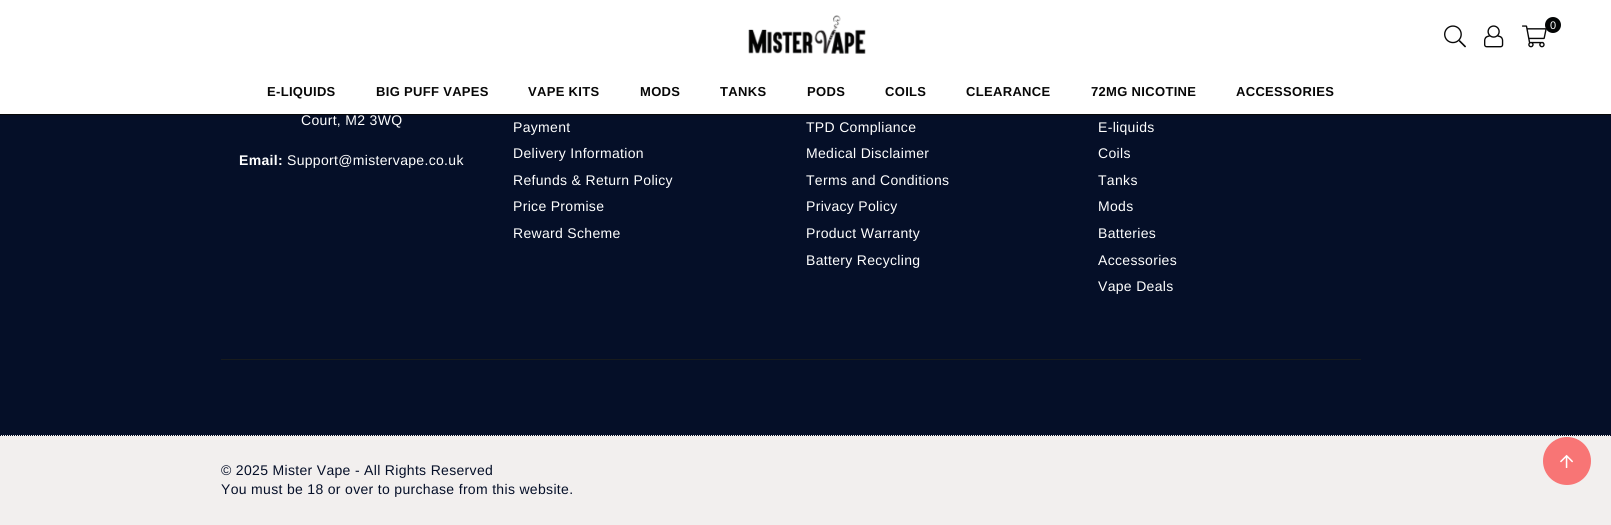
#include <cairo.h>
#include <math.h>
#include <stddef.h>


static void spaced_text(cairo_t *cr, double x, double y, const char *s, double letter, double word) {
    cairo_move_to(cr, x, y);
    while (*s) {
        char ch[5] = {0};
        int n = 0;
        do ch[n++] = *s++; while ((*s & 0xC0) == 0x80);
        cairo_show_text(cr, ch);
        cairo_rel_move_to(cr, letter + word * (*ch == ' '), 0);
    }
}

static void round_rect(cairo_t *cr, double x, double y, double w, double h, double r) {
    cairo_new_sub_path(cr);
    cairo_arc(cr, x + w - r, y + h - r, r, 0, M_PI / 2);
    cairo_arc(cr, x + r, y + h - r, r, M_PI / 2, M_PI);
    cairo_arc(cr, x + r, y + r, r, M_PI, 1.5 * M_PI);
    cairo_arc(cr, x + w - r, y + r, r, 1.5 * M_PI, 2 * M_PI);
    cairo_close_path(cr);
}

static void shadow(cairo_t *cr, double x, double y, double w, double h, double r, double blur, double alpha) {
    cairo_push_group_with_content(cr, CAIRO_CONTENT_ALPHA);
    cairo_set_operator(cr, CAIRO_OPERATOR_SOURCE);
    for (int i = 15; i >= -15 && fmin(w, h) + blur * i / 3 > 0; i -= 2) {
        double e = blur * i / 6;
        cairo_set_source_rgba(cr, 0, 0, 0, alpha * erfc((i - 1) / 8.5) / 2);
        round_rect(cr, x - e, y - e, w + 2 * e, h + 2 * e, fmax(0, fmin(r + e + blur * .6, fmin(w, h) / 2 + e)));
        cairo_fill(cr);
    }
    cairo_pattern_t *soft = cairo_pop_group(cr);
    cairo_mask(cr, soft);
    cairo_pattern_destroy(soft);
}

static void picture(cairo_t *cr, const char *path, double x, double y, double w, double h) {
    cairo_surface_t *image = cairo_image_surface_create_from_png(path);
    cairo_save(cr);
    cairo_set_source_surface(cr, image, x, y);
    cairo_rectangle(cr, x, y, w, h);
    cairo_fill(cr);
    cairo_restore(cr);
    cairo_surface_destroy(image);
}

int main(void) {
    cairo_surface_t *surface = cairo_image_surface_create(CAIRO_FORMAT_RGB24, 1611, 525);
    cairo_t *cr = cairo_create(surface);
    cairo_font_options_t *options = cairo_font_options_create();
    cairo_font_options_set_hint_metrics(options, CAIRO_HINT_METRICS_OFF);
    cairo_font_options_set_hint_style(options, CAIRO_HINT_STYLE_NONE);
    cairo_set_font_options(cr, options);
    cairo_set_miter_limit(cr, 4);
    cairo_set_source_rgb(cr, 0.02, 0.059, 0.157);
    cairo_paint(cr);
    cairo_set_source_rgb(cr, 0, 0, 0);
    shadow(cr, 0, 0, 1611, 115, 0, 3.5, 0.2);
    cairo_set_source_rgb(cr, 1, 1, 1);
    cairo_rectangle(cr, 0, 0, 1611, 114);
    cairo_fill(cr);
    cairo_set_source_rgb(cr, 0.031, 0.031, 0.031);
    cairo_rectangle(cr, 0, 114, 1611, 1);
    cairo_fill(cr);
    picture(cr, "img1.png", 748, 15, 118, 39);
    picture(cr, "img2.png", 1444, 25, 22, 23);
    picture(cr, "img3.png", 1484, 25, 20, 23);
    picture(cr, "img4.png", 1522, 25, 25, 23);
    cairo_set_source_rgb(cr, 0.012, 0.02, 0.02);
    cairo_arc(cr, 1553, 25, 8, 0, 2 * M_PI);
    cairo_fill(cr);
    cairo_select_font_face(cr, "Liberation Sans", CAIRO_FONT_SLANT_NORMAL, CAIRO_FONT_WEIGHT_NORMAL);
    cairo_set_font_size(cr, 11);
    cairo_set_source_rgb(cr, 1, 1, 1);
    spaced_text(cr, 1550, 29, "0", 0.32, 0);
    cairo_select_font_face(cr, "Liberation Sans", CAIRO_FONT_SLANT_NORMAL, CAIRO_FONT_WEIGHT_BOLD);
    cairo_set_font_size(cr, 13);
    cairo_set_source_rgb(cr, 0.031, 0.031, 0.031);
    spaced_text(cr, 267, 96, "E-LIQUIDS", 0.32, 0);
    spaced_text(cr, 376, 96, "BIG PUFF VAPES", 0.32, 0);
    spaced_text(cr, 528, 96, "VAPE KITS", 0.32, 0);
    spaced_text(cr, 640, 96, "MODS", 0.32, 0);
    spaced_text(cr, 720, 96, "TANKS", 0.32, 0);
    spaced_text(cr, 807, 96, "PODS", 0.32, 0);
    spaced_text(cr, 885, 96, "COILS", 0.32, 0);
    spaced_text(cr, 966, 96, "CLEARANCE", 0.32, 0);
    spaced_text(cr, 1091, 96, "72MG NICOTINE", 0.32, 0);
    spaced_text(cr, 1236, 96, "ACCESSORIES", 0.32, 0);
    cairo_select_font_face(cr, "Liberation Sans", CAIRO_FONT_SLANT_NORMAL, CAIRO_FONT_WEIGHT_NORMAL);
    cairo_set_font_size(cr, 14);
    cairo_set_source_rgb(cr, 1, 1, 1);
    spaced_text(cr, 301, 125, "Court, M2 3WQ", 0.32, 0);
    cairo_select_font_face(cr, "Liberation Sans", CAIRO_FONT_SLANT_NORMAL, CAIRO_FONT_WEIGHT_BOLD);
    spaced_text(cr, 239, 165, "Email:", 0.32, 0);
    cairo_select_font_face(cr, "Liberation Sans", CAIRO_FONT_SLANT_NORMAL, CAIRO_FONT_WEIGHT_NORMAL);
    spaced_text(cr, 287, 165, "Support@mistervape.co.uk", 0.32, 0);
    spaced_text(cr, 513, 132, "Payment", 0.32, 0);
    spaced_text(cr, 513, 158, "Delivery Information", 0.32, 0);
    spaced_text(cr, 513, 185, "Refunds & Return Policy", 0.32, 0);
    spaced_text(cr, 513, 211, "Price Promise", 0.32, 0);
    spaced_text(cr, 513, 238, "Reward Scheme", 0.32, 0);
    spaced_text(cr, 806, 132, "TPD Compliance", 0.32, 0);
    spaced_text(cr, 806, 158, "Medical Disclaimer", 0.32, 0);
    spaced_text(cr, 806, 185, "Terms and Conditions", 0.32, 0);
    spaced_text(cr, 806, 211, "Privacy Policy", 0.32, 0);
    spaced_text(cr, 806, 238, "Product Warranty", 0.32, 0);
    spaced_text(cr, 806, 265, "Battery Recycling", 0.32, 0);
    spaced_text(cr, 1098, 132, "E-liquids", 0.32, 0);
    spaced_text(cr, 1098, 158, "Coils", 0.32, 0);
    spaced_text(cr, 1098, 185, "Tanks", 0.32, 0);
    spaced_text(cr, 1098, 211, "Mods", 0.32, 0);
    spaced_text(cr, 1098, 238, "Batteries", 0.32, 0);
    spaced_text(cr, 1098, 265, "Accessories", 0.32, 0);
    spaced_text(cr, 1098, 291, "Vape Deals", 0.32, 0);
    cairo_set_source_rgb(cr, 0.094, 0.106, 0.114);
    cairo_rectangle(cr, 221, 359, 1140, 1);
    cairo_fill(cr);
    cairo_set_source_rgb(cr, 0.949, 0.937, 0.933);
    cairo_rectangle(cr, 0, 435, 1611, 90);
    cairo_fill(cr);
    cairo_new_path(cr);
    cairo_move_to(cr, 0, 435.5);
    cairo_line_to(cr, 1611, 435.5);
    cairo_set_source_rgb(cr, 0.02, 0.059, 0.157);
    cairo_set_line_width(cr, 1);
    cairo_set_dash(cr, (double[]){1, 1}, 2, 0);
    cairo_stroke(cr);
    spaced_text(cr, 221, 475, "© 2025 Mister Vape - All Rights Reserved", 0.32, 0);
    spaced_text(cr, 221, 494, "You must be 18 or over to purchase from this website.", 0.32, 0);
    cairo_set_source_rgb(cr, 0.969, 0.459, 0.459);
    cairo_new_path(cr);
    cairo_arc(cr, 1567, 461, 24, 0, 2 * M_PI);
    cairo_fill(cr);
    picture(cr, "img5.png", 1560, 454, 13, 14);
    cairo_surface_write_to_png(surface, "page.png");
    cairo_font_options_destroy(options);
    cairo_destroy(cr);
    cairo_surface_destroy(surface);
    return 0;
}
